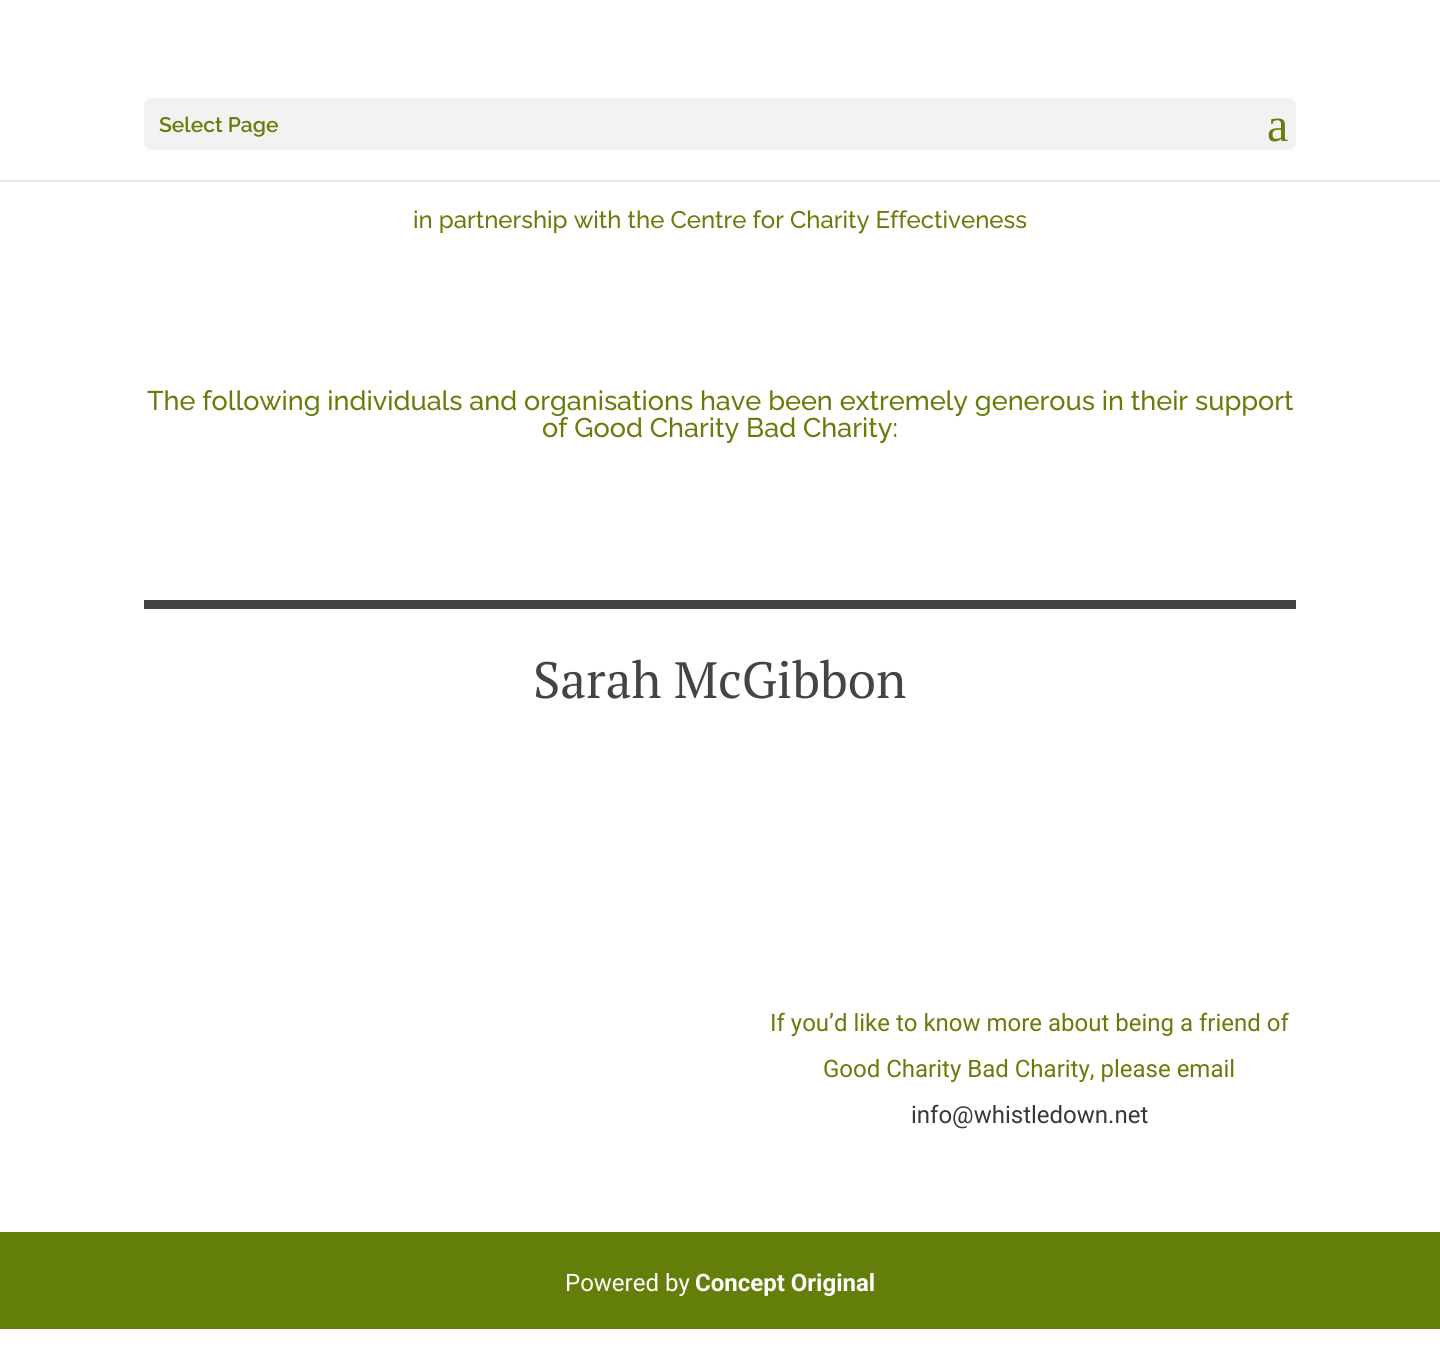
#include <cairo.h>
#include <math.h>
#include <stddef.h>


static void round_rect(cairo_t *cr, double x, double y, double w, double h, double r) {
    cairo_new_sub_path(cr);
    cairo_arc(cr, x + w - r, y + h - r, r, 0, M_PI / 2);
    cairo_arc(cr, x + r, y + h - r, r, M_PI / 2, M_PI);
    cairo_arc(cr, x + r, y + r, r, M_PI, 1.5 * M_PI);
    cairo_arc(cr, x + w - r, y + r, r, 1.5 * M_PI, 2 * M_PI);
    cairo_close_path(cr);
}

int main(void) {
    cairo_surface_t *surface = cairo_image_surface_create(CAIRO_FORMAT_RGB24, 1440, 1365);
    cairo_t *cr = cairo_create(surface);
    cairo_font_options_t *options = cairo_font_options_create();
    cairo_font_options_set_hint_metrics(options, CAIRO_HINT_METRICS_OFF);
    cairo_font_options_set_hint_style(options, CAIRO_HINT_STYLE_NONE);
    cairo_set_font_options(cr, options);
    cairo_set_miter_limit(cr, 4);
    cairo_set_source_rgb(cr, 1, 1, 1);
    cairo_paint(cr);
    cairo_set_source_rgb(cr, 0.902, 0.902, 0.902);
    cairo_rectangle(cr, 0, 180, 1440, 2);
    cairo_fill(cr);
    cairo_set_source_rgb(cr, 0.949, 0.949, 0.949);
    round_rect(cr, 144, 98, 1152, 52, 8);
    cairo_fill(cr);
    cairo_select_font_face(cr, "Raleway SemiBold", CAIRO_FONT_SLANT_NORMAL, CAIRO_FONT_WEIGHT_NORMAL);
    cairo_set_font_size(cr, 21);
    cairo_set_source_rgb(cr, 0.392, 0.498, 0.039);
    cairo_move_to(cr, 159, 132);
    cairo_show_text(cr, "Select Page");
    cairo_select_font_face(cr, "Liberation Serif", CAIRO_FONT_SLANT_NORMAL, CAIRO_FONT_WEIGHT_NORMAL);
    cairo_set_font_size(cr, 48);
    cairo_move_to(cr, 1267, 141);
    cairo_show_text(cr, "a");
    cairo_select_font_face(cr, "Raleway Medium", CAIRO_FONT_SLANT_NORMAL, CAIRO_FONT_WEIGHT_NORMAL);
    cairo_set_font_size(cr, 24);
    cairo_move_to(cr, 413, 228);
    cairo_show_text(cr, "in partnership with the Centre for Charity Effectiveness");
    cairo_set_font_size(cr, 27);
    cairo_move_to(cr, 147, 410);
    cairo_show_text(cr, "The following individuals and organisations have been extremely generous in their support");
    cairo_move_to(cr, 542, 437);
    cairo_show_text(cr, "of Good Charity Bad Charity:");
    cairo_set_source_rgb(cr, 0.267, 0.267, 0.267);
    cairo_rectangle(cr, 144, 600, 1152, 9);
    cairo_fill(cr);
    cairo_select_font_face(cr, "PT Serif", CAIRO_FONT_SLANT_NORMAL, CAIRO_FONT_WEIGHT_NORMAL);
    cairo_set_font_size(cr, 51);
    cairo_move_to(cr, 533, 698);
    cairo_show_text(cr, "Sarah McGibbon");
    cairo_select_font_face(cr, "Roboto", CAIRO_FONT_SLANT_NORMAL, CAIRO_FONT_WEIGHT_NORMAL);
    cairo_set_font_size(cr, 24);
    cairo_set_source_rgb(cr, 0.392, 0.498, 0.039);
    cairo_move_to(cr, 770, 1031);
    cairo_show_text(cr, "If you’d like to know more about being a friend of");
    cairo_move_to(cr, 823, 1077);
    cairo_show_text(cr, "Good Charity Bad Charity, please email");
    cairo_set_source_rgb(cr, 0.22, 0.22, 0.22);
    cairo_move_to(cr, 911, 1123);
    cairo_show_text(cr, "info@whistledown.net");
    cairo_set_source_rgb(cr, 0.392, 0.498, 0.039);
    cairo_rectangle(cr, 0, 1232, 1440, 97);
    cairo_fill(cr);
    cairo_set_source_rgb(cr, 1, 1, 1);
    cairo_move_to(cr, 565, 1291);
    cairo_show_text(cr, "Powered by");
    cairo_select_font_face(cr, "Roboto", CAIRO_FONT_SLANT_NORMAL, CAIRO_FONT_WEIGHT_BOLD);
    cairo_move_to(cr, 695, 1291);
    cairo_show_text(cr, "Concept Original");
    cairo_surface_write_to_png(surface, "page.png");
    cairo_font_options_destroy(options);
    cairo_destroy(cr);
    cairo_surface_destroy(surface);
    return 0;
}
